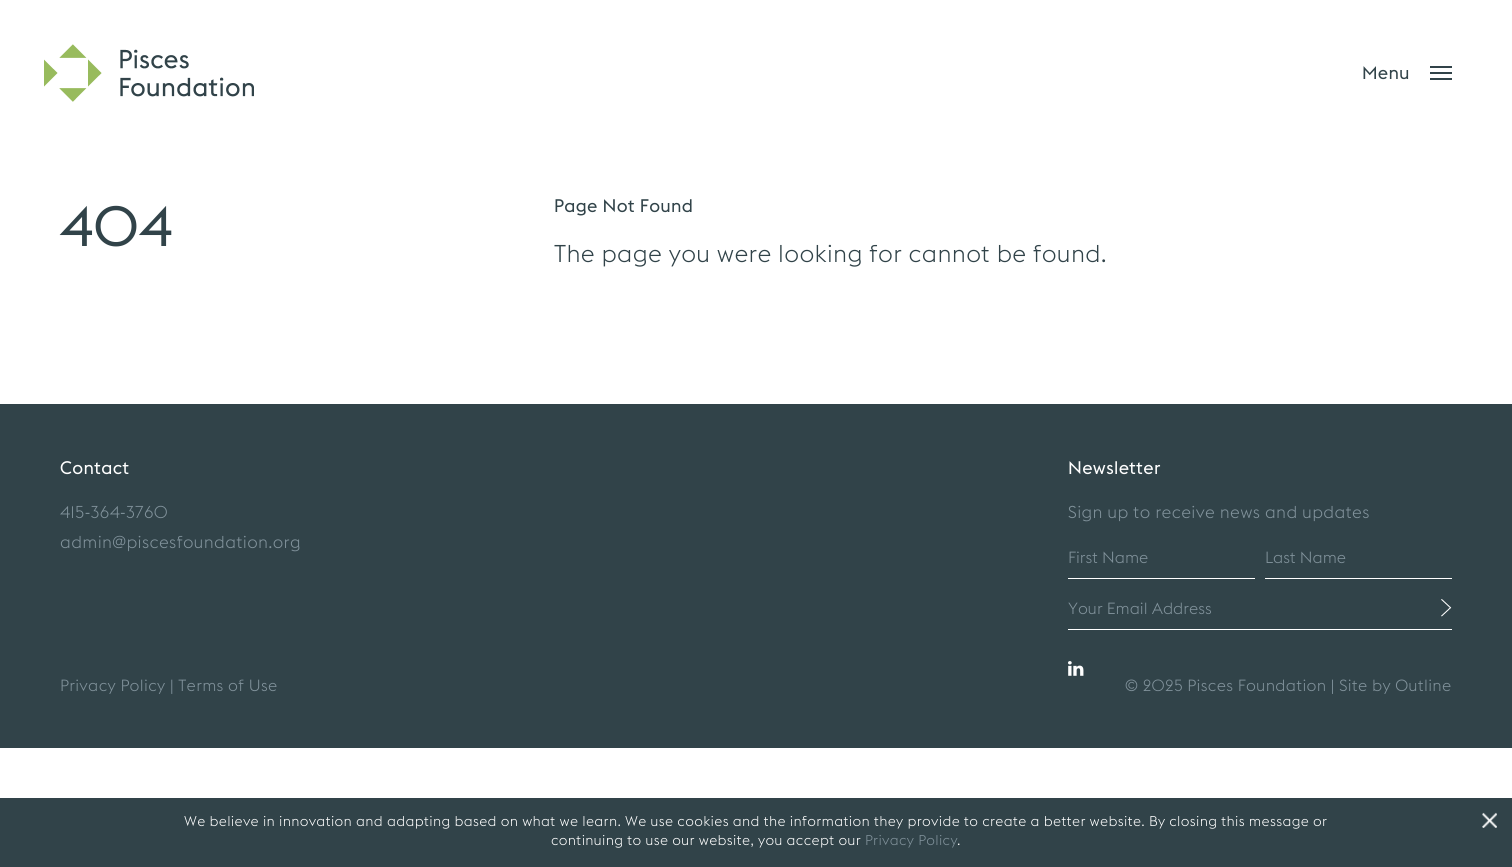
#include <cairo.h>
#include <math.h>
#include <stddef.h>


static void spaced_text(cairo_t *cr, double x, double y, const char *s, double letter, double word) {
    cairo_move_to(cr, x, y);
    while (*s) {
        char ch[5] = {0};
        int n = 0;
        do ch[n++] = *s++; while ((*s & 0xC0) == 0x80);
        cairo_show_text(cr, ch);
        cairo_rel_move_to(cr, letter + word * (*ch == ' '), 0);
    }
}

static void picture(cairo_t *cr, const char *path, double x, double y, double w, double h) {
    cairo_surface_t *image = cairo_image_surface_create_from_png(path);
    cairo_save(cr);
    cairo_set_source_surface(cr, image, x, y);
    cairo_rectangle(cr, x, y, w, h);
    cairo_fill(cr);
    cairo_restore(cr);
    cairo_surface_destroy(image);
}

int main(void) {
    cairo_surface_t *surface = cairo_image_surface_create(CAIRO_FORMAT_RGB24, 1512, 867);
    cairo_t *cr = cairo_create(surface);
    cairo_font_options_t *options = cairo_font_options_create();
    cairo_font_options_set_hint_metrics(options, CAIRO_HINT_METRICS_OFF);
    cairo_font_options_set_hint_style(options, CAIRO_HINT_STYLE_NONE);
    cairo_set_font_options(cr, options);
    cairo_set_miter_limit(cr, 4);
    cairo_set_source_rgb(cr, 1, 1, 1);
    cairo_paint(cr);
    picture(cr, "img1.png", 44, 44, 210, 58);
    cairo_select_font_face(cr, "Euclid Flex", CAIRO_FONT_SLANT_NORMAL, CAIRO_FONT_WEIGHT_NORMAL);
    cairo_set_font_size(cr, 18);
    cairo_set_source_rgb(cr, 0.192, 0.263, 0.286);
    spaced_text(cr, 1362, 79, "Menu", 0.32, 0);
    picture(cr, "img2.png", 1430, 66, 22, 14);
    cairo_set_font_size(cr, 56);
    spaced_text(cr, 60, 246, "404", 0.32, 0);
    cairo_set_font_size(cr, 18);
    spaced_text(cr, 554, 212, "Page Not Found", 0.32, 0);
    cairo_select_font_face(cr, "Euclid Flex Light", CAIRO_FONT_SLANT_NORMAL, CAIRO_FONT_WEIGHT_NORMAL);
    cairo_set_font_size(cr, 24);
    spaced_text(cr, 554, 262, "The page you were looking for cannot be found.", 0.32, 0);
    cairo_rectangle(cr, 0, 404, 1512, 344);
    cairo_fill(cr);
    cairo_select_font_face(cr, "Euclid Flex", CAIRO_FONT_SLANT_NORMAL, CAIRO_FONT_WEIGHT_NORMAL);
    cairo_set_font_size(cr, 18);
    cairo_set_source_rgb(cr, 1, 1, 1);
    spaced_text(cr, 60, 474, "Contact", 0.32, 0);
    cairo_select_font_face(cr, "Euclid Flex Light", CAIRO_FONT_SLANT_NORMAL, CAIRO_FONT_WEIGHT_NORMAL);
    cairo_set_font_size(cr, 17);
    cairo_set_source_rgb(cr, 0.506, 0.573, 0.608);
    spaced_text(cr, 60, 518, "415-364-3760", 0.32, 0);
    spaced_text(cr, 60, 548, "admin@piscesfoundation.org", 0.32, 0);
    cairo_select_font_face(cr, "Euclid Flex", CAIRO_FONT_SLANT_NORMAL, CAIRO_FONT_WEIGHT_NORMAL);
    cairo_set_font_size(cr, 18);
    cairo_set_source_rgb(cr, 1, 1, 1);
    spaced_text(cr, 1068, 474, "Newsletter", 0.32, 0);
    cairo_select_font_face(cr, "Euclid Flex Light", CAIRO_FONT_SLANT_NORMAL, CAIRO_FONT_WEIGHT_NORMAL);
    cairo_set_font_size(cr, 17);
    cairo_set_source_rgb(cr, 0.506, 0.573, 0.608);
    spaced_text(cr, 1068, 518, "Sign up to receive news and updates", 0.32, 0);
    cairo_set_source_rgb(cr, 1, 1, 1);
    cairo_rectangle(cr, 1068, 578, 187, 1);
    cairo_fill(cr);
    cairo_set_font_size(cr, 16);
    cairo_set_source_rgb(cr, 0.506, 0.573, 0.608);
    cairo_move_to(cr, 1068, 563);
    cairo_show_text(cr, "First Name");
    cairo_set_source_rgb(cr, 1, 1, 1);
    cairo_rectangle(cr, 1265, 578, 187, 1);
    cairo_fill(cr);
    cairo_set_source_rgb(cr, 0.506, 0.573, 0.608);
    cairo_move_to(cr, 1265, 563);
    cairo_show_text(cr, "Last Name");
    cairo_set_source_rgb(cr, 1, 1, 1);
    cairo_rectangle(cr, 1068, 629, 384, 1);
    cairo_fill(cr);
    cairo_set_source_rgb(cr, 0.506, 0.573, 0.608);
    cairo_move_to(cr, 1068, 614);
    cairo_show_text(cr, "Your Email Address");
    picture(cr, "img3.png", 1441, 599, 11, 18);
    picture(cr, "img4.png", 1068, 661, 16, 15);
    spaced_text(cr, 60, 691, "Privacy Policy | Terms of Use", 0.32, 0);
    spaced_text(cr, 1125, 691, "© 2025 Pisces Foundation | Site by Outline", 0.32, 0);
    cairo_set_source_rgb(cr, 0.192, 0.263, 0.286);
    cairo_rectangle(cr, 0, 798, 1512, 69);
    cairo_fill(cr);
    cairo_set_font_size(cr, 14);
    cairo_set_source_rgb(cr, 1, 1, 1);
    spaced_text(cr, 184, 826, "We believe in innovation and adapting based on what we learn. We use cookies and the information they provide to create a better website. By closing this message or", 0.32, 0);
    spaced_text(cr, 551, 845, "continuing to use our website, you accept our", 0.32, 0);
    cairo_set_source_rgb(cr, 0.506, 0.573, 0.608);
    spaced_text(cr, 865, 845, "Privacy Policy", 0.32, 0);
    cairo_set_source_rgb(cr, 1, 1, 1);
    spaced_text(cr, 957, 845, ".", 0.32, 0);
    picture(cr, "img5.png", 1482, 812, 15, 16);
    cairo_surface_write_to_png(surface, "page.png");
    cairo_font_options_destroy(options);
    cairo_destroy(cr);
    cairo_surface_destroy(surface);
    return 0;
}
